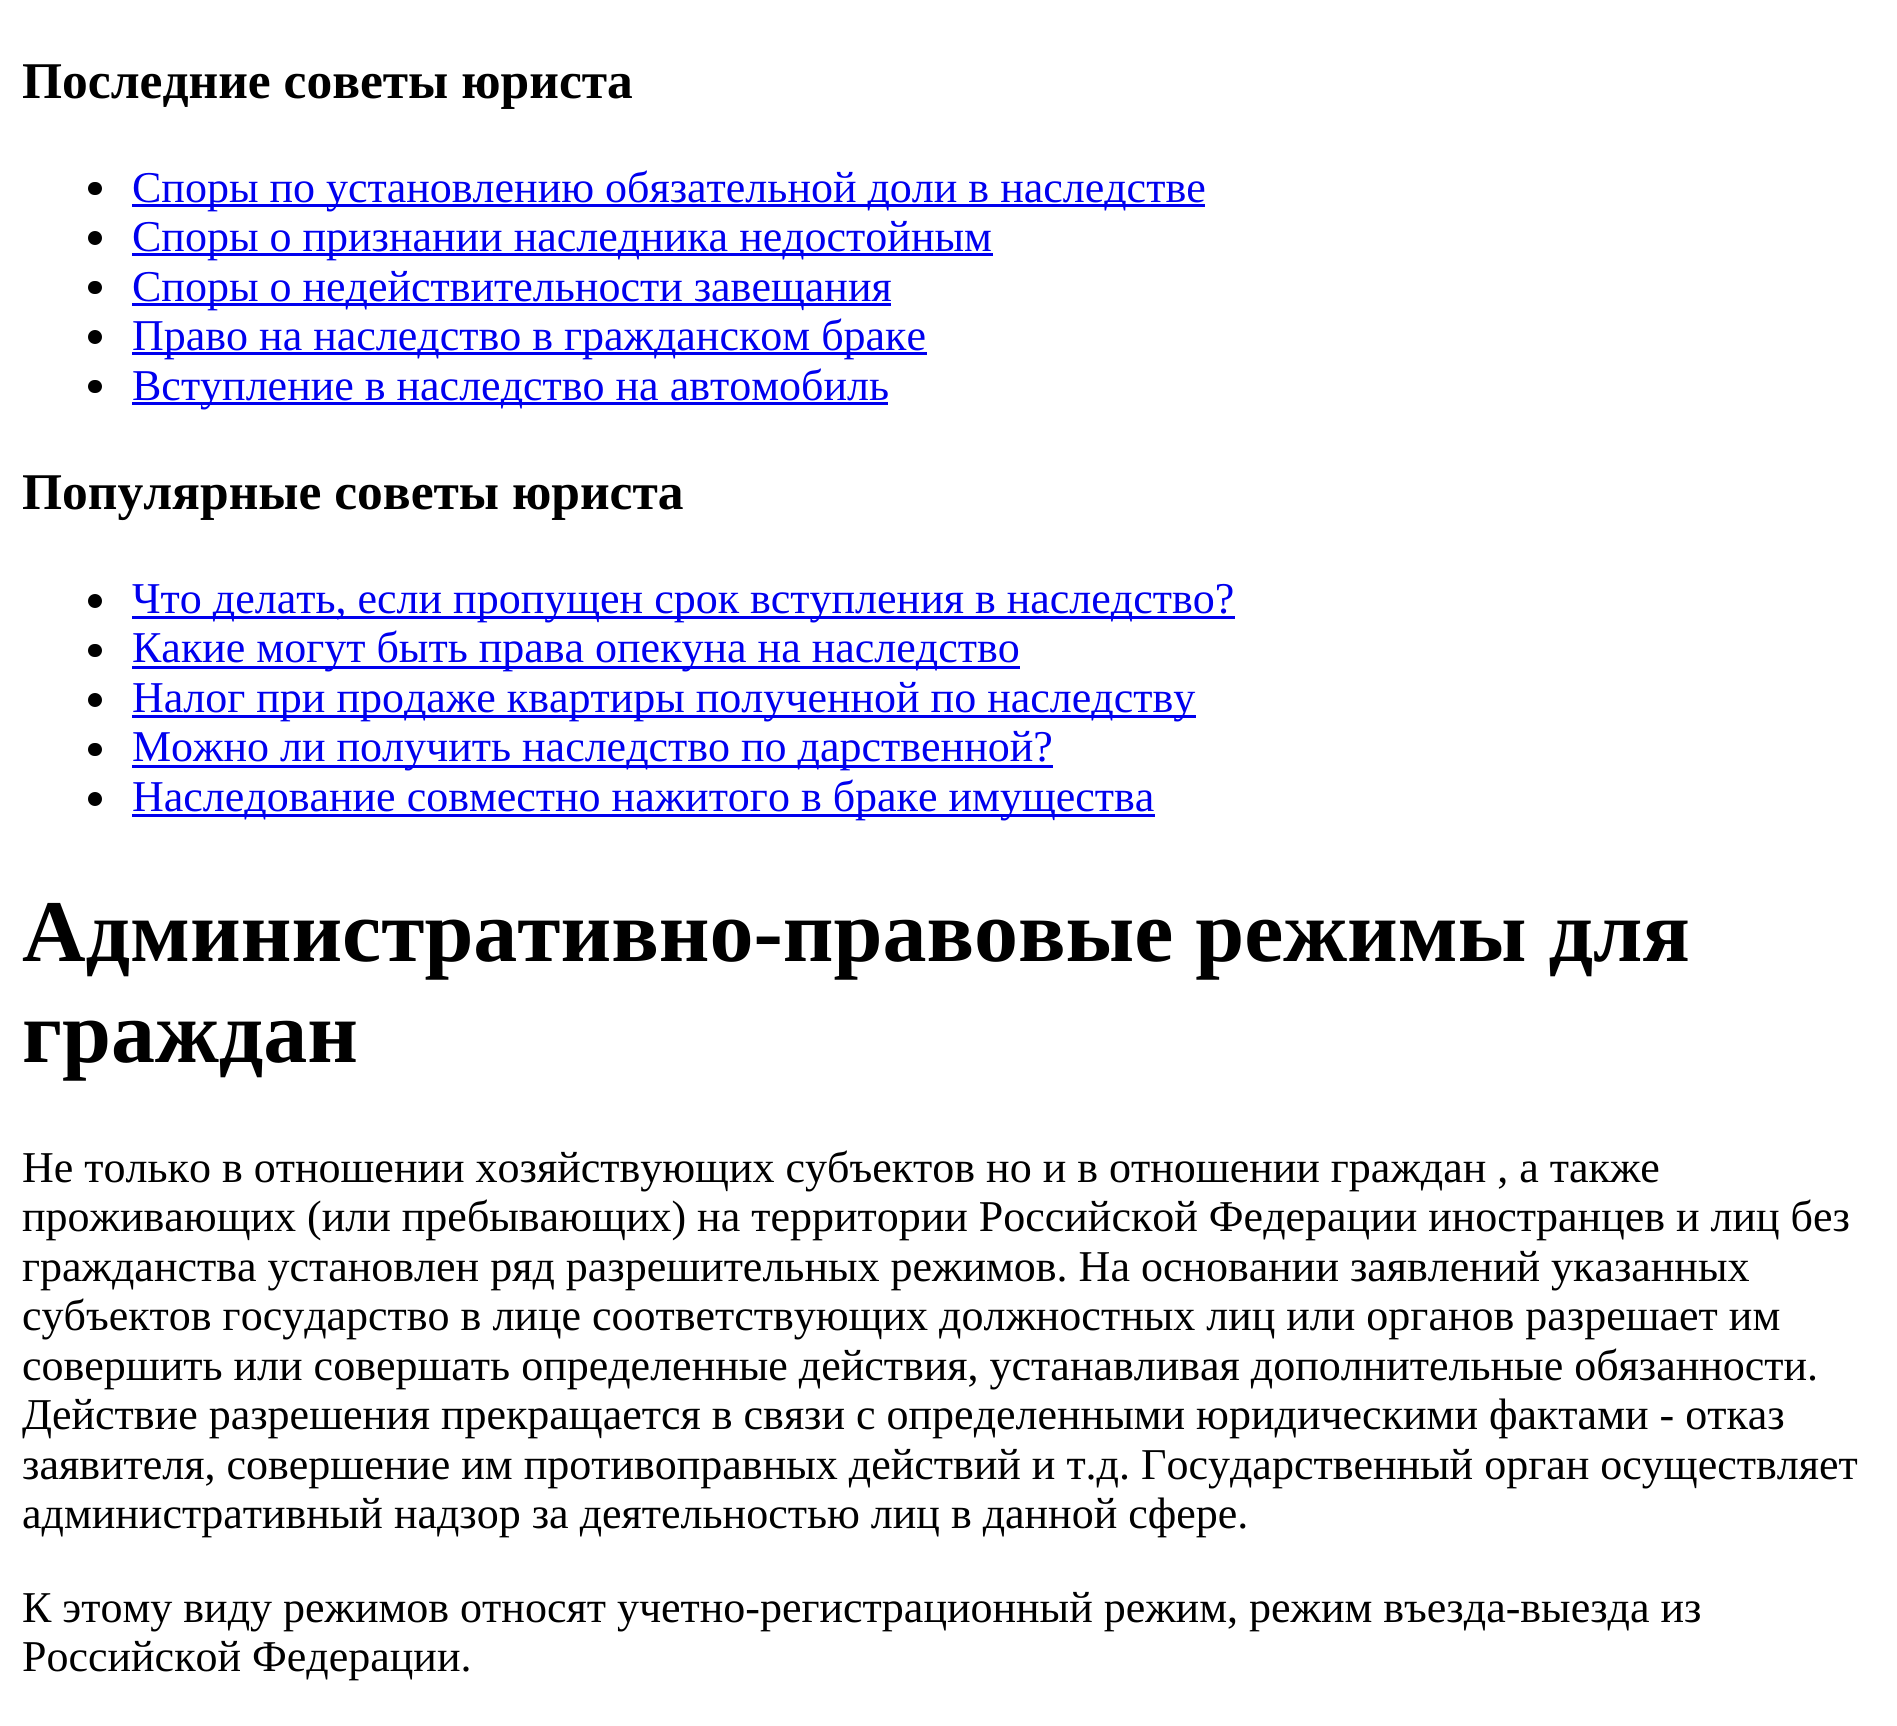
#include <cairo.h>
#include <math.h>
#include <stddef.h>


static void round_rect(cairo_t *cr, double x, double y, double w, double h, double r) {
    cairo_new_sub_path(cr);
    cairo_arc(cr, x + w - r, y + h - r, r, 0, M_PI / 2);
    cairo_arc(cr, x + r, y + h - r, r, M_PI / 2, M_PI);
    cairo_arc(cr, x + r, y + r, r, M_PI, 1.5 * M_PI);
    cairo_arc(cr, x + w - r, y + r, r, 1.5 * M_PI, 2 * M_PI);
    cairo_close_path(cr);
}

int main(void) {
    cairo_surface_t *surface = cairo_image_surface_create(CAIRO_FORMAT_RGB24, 1897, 1726);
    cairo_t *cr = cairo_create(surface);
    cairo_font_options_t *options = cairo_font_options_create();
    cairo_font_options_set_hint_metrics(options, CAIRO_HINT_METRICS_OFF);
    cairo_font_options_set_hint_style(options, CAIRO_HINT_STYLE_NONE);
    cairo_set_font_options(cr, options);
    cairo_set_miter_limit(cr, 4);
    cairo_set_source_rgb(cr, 1, 1, 1);
    cairo_paint(cr);
    cairo_select_font_face(cr, "Liberation Serif", CAIRO_FONT_SLANT_NORMAL, CAIRO_FONT_WEIGHT_BOLD);
    cairo_set_font_size(cr, 51.5);
    cairo_set_source_rgb(cr, 0, 0, 0);
    cairo_move_to(cr, 22, 98);
    cairo_show_text(cr, "Последние советы юриста");
    round_rect(cr, 88, 182, 14, 13, 6.5);
    cairo_fill(cr);
    cairo_set_source_rgb(cr, 0, 0, 0.933);
    cairo_rectangle(cr, 132, 204, 1073, 3);
    cairo_fill(cr);
    cairo_select_font_face(cr, "Liberation Serif", CAIRO_FONT_SLANT_NORMAL, CAIRO_FONT_WEIGHT_NORMAL);
    cairo_set_font_size(cr, 44);
    cairo_move_to(cr, 132, 202);
    cairo_show_text(cr, "Споры по установлению обязательной доли в наследстве");
    cairo_set_source_rgb(cr, 0, 0, 0);
    cairo_new_path(cr);
    cairo_arc(cr, 95, 238, 7, 0, 2 * M_PI);
    cairo_fill(cr);
    cairo_set_source_rgb(cr, 0, 0, 0.933);
    cairo_rectangle(cr, 132, 253, 861, 3);
    cairo_fill(cr);
    cairo_move_to(cr, 132, 251);
    cairo_show_text(cr, "Споры о признании наследника недостойным");
    cairo_set_source_rgb(cr, 0, 0, 0);
    round_rect(cr, 88, 281, 14, 13, 6.5);
    cairo_fill(cr);
    cairo_set_source_rgb(cr, 0, 0, 0.933);
    cairo_rectangle(cr, 132, 303, 759, 3);
    cairo_fill(cr);
    cairo_move_to(cr, 132, 301);
    cairo_show_text(cr, "Споры о недействительности завещания");
    cairo_set_source_rgb(cr, 0, 0, 0);
    cairo_new_path(cr);
    cairo_arc(cr, 95, 337, 7, 0, 2 * M_PI);
    cairo_fill(cr);
    cairo_set_source_rgb(cr, 0, 0, 0.933);
    cairo_rectangle(cr, 132, 352, 795, 3);
    cairo_fill(cr);
    cairo_move_to(cr, 132, 350);
    cairo_show_text(cr, "Право на наследство в гражданском браке");
    cairo_set_source_rgb(cr, 0, 0, 0);
    round_rect(cr, 88, 380, 14, 13, 6.5);
    cairo_fill(cr);
    cairo_set_source_rgb(cr, 0, 0, 0.933);
    cairo_rectangle(cr, 132, 402, 756, 3);
    cairo_fill(cr);
    cairo_move_to(cr, 132, 400);
    cairo_show_text(cr, "Вступление в наследство на автомобиль");
    cairo_select_font_face(cr, "Liberation Serif", CAIRO_FONT_SLANT_NORMAL, CAIRO_FONT_WEIGHT_BOLD);
    cairo_set_font_size(cr, 51.5);
    cairo_set_source_rgb(cr, 0, 0, 0);
    cairo_move_to(cr, 22, 509);
    cairo_show_text(cr, "Популярные советы юриста");
    cairo_new_path(cr);
    cairo_arc(cr, 95, 601, 7, 0, 2 * M_PI);
    cairo_fill(cr);
    cairo_set_source_rgb(cr, 0, 0, 0.933);
    cairo_rectangle(cr, 132, 616, 1103, 3);
    cairo_fill(cr);
    cairo_select_font_face(cr, "Liberation Serif", CAIRO_FONT_SLANT_NORMAL, CAIRO_FONT_WEIGHT_NORMAL);
    cairo_set_font_size(cr, 44);
    cairo_move_to(cr, 132, 613);
    cairo_show_text(cr, "Что делать, если пропущен срок вступления в наследство?");
    cairo_set_source_rgb(cr, 0, 0, 0);
    round_rect(cr, 88, 644, 14, 13, 6.5);
    cairo_fill(cr);
    cairo_set_source_rgb(cr, 0, 0, 0.933);
    cairo_rectangle(cr, 132, 666, 888, 3);
    cairo_fill(cr);
    cairo_move_to(cr, 132, 662);
    cairo_show_text(cr, "Какие могут быть права опекуна на наследство");
    cairo_set_source_rgb(cr, 0, 0, 0);
    cairo_new_path(cr);
    cairo_arc(cr, 95, 700, 7, 0, 2 * M_PI);
    cairo_fill(cr);
    cairo_set_source_rgb(cr, 0, 0, 0.933);
    cairo_rectangle(cr, 132, 715, 1064, 3);
    cairo_fill(cr);
    cairo_move_to(cr, 132, 712);
    cairo_show_text(cr, "Налог при продаже квартиры полученной по наследству");
    cairo_set_source_rgb(cr, 0, 0, 0);
    round_rect(cr, 88, 743, 14, 13, 6.5);
    cairo_fill(cr);
    cairo_set_source_rgb(cr, 0, 0, 0.933);
    cairo_rectangle(cr, 132, 765, 921, 3);
    cairo_fill(cr);
    cairo_move_to(cr, 132, 761);
    cairo_show_text(cr, "Можно ли получить наследство по дарственной?");
    cairo_set_source_rgb(cr, 0, 0, 0);
    cairo_new_path(cr);
    cairo_arc(cr, 95, 799, 7, 0, 2 * M_PI);
    cairo_fill(cr);
    cairo_set_source_rgb(cr, 0, 0, 0.933);
    cairo_rectangle(cr, 132, 814, 1023, 3);
    cairo_fill(cr);
    cairo_move_to(cr, 132, 811);
    cairo_show_text(cr, "Наследование совместно нажитого в браке имущества");
    cairo_select_font_face(cr, "Liberation Serif", CAIRO_FONT_SLANT_NORMAL, CAIRO_FONT_WEIGHT_BOLD);
    cairo_set_font_size(cr, 88);
    cairo_set_source_rgb(cr, 0, 0, 0);
    cairo_move_to(cr, 22, 961);
    cairo_show_text(cr, "Административно-правовые режимы для");
    cairo_move_to(cr, 22, 1062);
    cairo_show_text(cr, "граждан");
    cairo_select_font_face(cr, "Liberation Serif", CAIRO_FONT_SLANT_NORMAL, CAIRO_FONT_WEIGHT_NORMAL);
    cairo_set_font_size(cr, 44);
    cairo_move_to(cr, 22, 1182);
    cairo_show_text(cr, "Не только в отношении хозяйствующих субъектов но и в отношении граждан , а также");
    cairo_move_to(cr, 22, 1231);
    cairo_show_text(cr, "проживающих (или пребывающих) на территории Российской Федерации иностранцев и лиц без");
    cairo_move_to(cr, 22, 1281);
    cairo_show_text(cr, "гражданства установлен ряд разрешительных режимов. На основании заявлений указанных");
    cairo_move_to(cr, 22, 1330);
    cairo_show_text(cr, "субъектов государство в лице соответствующих должностных лиц или органов разрешает им");
    cairo_move_to(cr, 22, 1380);
    cairo_show_text(cr, "совершить или совершать определенные действия, устанавливая дополнительные обязанности.");
    cairo_move_to(cr, 22, 1429);
    cairo_show_text(cr, "Действие разрешения прекращается в связи с определенными юридическими фактами - отказ");
    cairo_move_to(cr, 22, 1479);
    cairo_show_text(cr, "заявителя, совершение им противоправных действий и т.д. Государственный орган осуществляет");
    cairo_move_to(cr, 22, 1528);
    cairo_show_text(cr, "административный надзор за деятельностью лиц в данной сфере.");
    cairo_move_to(cr, 22, 1622);
    cairo_show_text(cr, "К этому виду режимов относят учетно-регистрационный режим, режим въезда-выезда из");
    cairo_move_to(cr, 22, 1671);
    cairo_show_text(cr, "Российской Федерации.");
    cairo_surface_write_to_png(surface, "page.png");
    cairo_font_options_destroy(options);
    cairo_destroy(cr);
    cairo_surface_destroy(surface);
    return 0;
}
